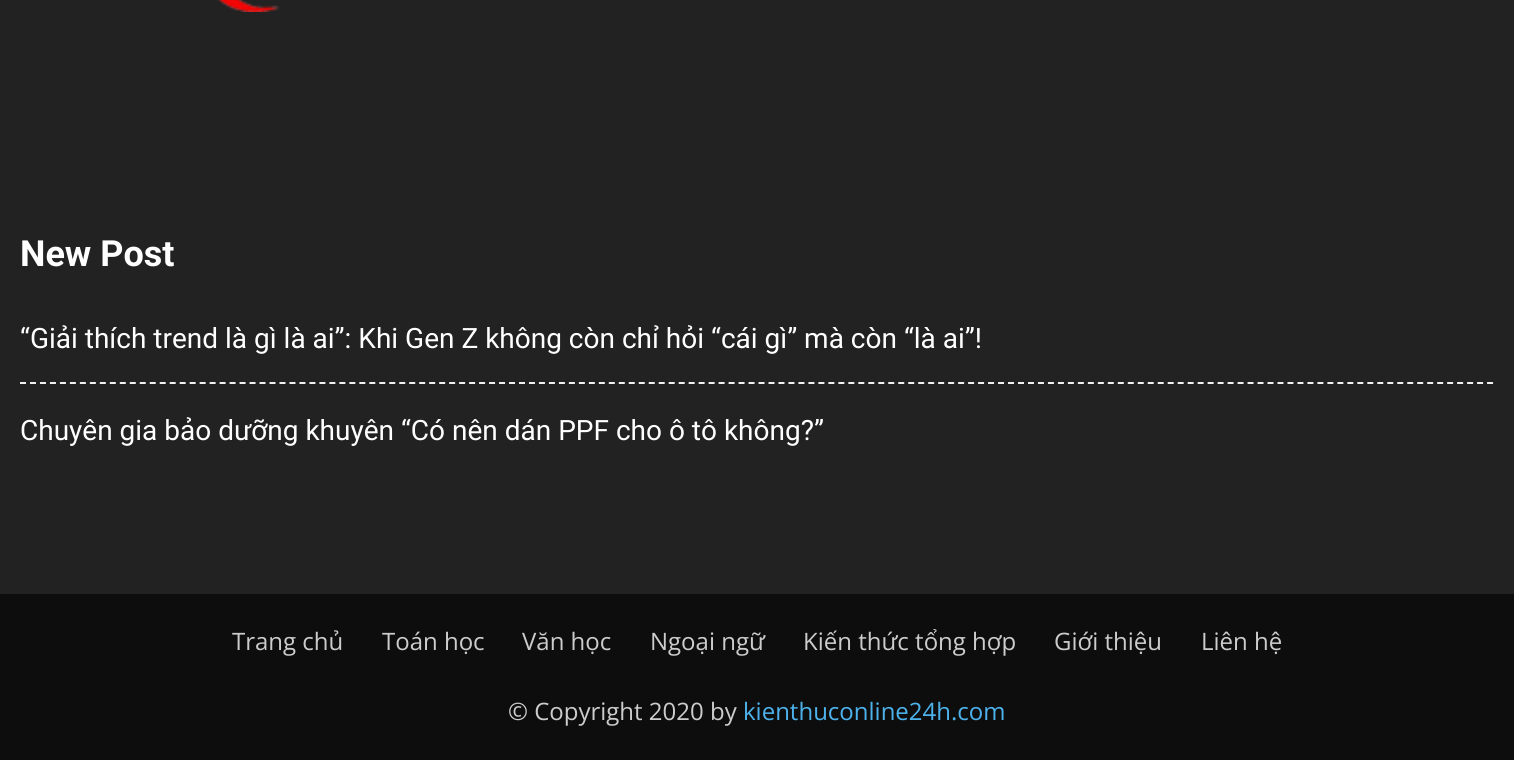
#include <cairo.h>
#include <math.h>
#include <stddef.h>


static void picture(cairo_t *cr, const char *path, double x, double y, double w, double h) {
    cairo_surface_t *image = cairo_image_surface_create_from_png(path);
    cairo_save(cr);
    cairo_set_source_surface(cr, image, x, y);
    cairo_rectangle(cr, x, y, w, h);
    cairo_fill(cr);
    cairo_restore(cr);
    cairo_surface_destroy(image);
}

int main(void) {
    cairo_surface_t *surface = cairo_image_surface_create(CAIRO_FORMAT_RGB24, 1514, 760);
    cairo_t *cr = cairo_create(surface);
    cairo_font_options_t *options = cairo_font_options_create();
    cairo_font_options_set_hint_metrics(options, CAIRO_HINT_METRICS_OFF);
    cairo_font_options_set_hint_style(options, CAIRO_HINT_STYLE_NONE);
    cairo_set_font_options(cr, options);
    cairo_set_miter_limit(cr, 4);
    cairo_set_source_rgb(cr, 0.051, 0.051, 0.051);
    cairo_paint(cr);
    cairo_set_source_rgb(cr, 0.133, 0.133, 0.133);
    cairo_rectangle(cr, 0, 0, 1514, 594);
    cairo_fill(cr);
    picture(cr, "img1.png", 217, 0, 63, 12);
    cairo_select_font_face(cr, "Roboto", CAIRO_FONT_SLANT_NORMAL, CAIRO_FONT_WEIGHT_BOLD);
    cairo_set_font_size(cr, 36);
    cairo_set_source_rgb(cr, 1, 1, 1);
    cairo_move_to(cr, 20, 266);
    cairo_show_text(cr, "New Post");
    cairo_new_path(cr);
    cairo_move_to(cr, 20, 383);
    cairo_line_to(cr, 1494, 383);
    cairo_set_source_rgb(cr, 0.945, 0.945, 0.945);
    cairo_set_dash(cr, (double[]){6, 3.98}, 2, 0);
    cairo_stroke(cr);
    cairo_select_font_face(cr, "Roboto", CAIRO_FONT_SLANT_NORMAL, CAIRO_FONT_WEIGHT_NORMAL);
    cairo_set_font_size(cr, 28);
    cairo_set_source_rgb(cr, 1, 1, 1);
    cairo_move_to(cr, 20, 348);
    cairo_show_text(cr, "“Giải thích trend là gì là ai”: Khi Gen Z không còn chỉ hỏi “cái gì” mà còn “là ai”!");
    cairo_move_to(cr, 20, 440);
    cairo_show_text(cr, "Chuyên gia bảo dưỡng khuyên “Có nên dán PPF cho ô tô không?”");
    cairo_select_font_face(cr, "Open Sans", CAIRO_FONT_SLANT_NORMAL, CAIRO_FONT_WEIGHT_NORMAL);
    cairo_set_font_size(cr, 24);
    cairo_set_source_rgb(cr, 0.8, 0.8, 0.8);
    cairo_move_to(cr, 232, 650);
    cairo_show_text(cr, "Trang chủ");
    cairo_move_to(cr, 382, 650);
    cairo_show_text(cr, "Toán học");
    cairo_move_to(cr, 522, 650);
    cairo_show_text(cr, "Văn học");
    cairo_move_to(cr, 650, 650);
    cairo_show_text(cr, "Ngoại ngữ");
    cairo_move_to(cr, 803, 650);
    cairo_show_text(cr, "Kiến thức tổng hợp");
    cairo_move_to(cr, 1054, 650);
    cairo_show_text(cr, "Giới thiệu");
    cairo_move_to(cr, 1201, 650);
    cairo_show_text(cr, "Liên hệ");
    cairo_move_to(cr, 508, 720);
    cairo_show_text(cr, "© Copyright 2020 by");
    cairo_set_source_rgb(cr, 0.302, 0.698, 0.925);
    cairo_move_to(cr, 743, 720);
    cairo_show_text(cr, "kienthuconline24h.com");
    cairo_surface_write_to_png(surface, "page.png");
    cairo_font_options_destroy(options);
    cairo_destroy(cr);
    cairo_surface_destroy(surface);
    return 0;
}
